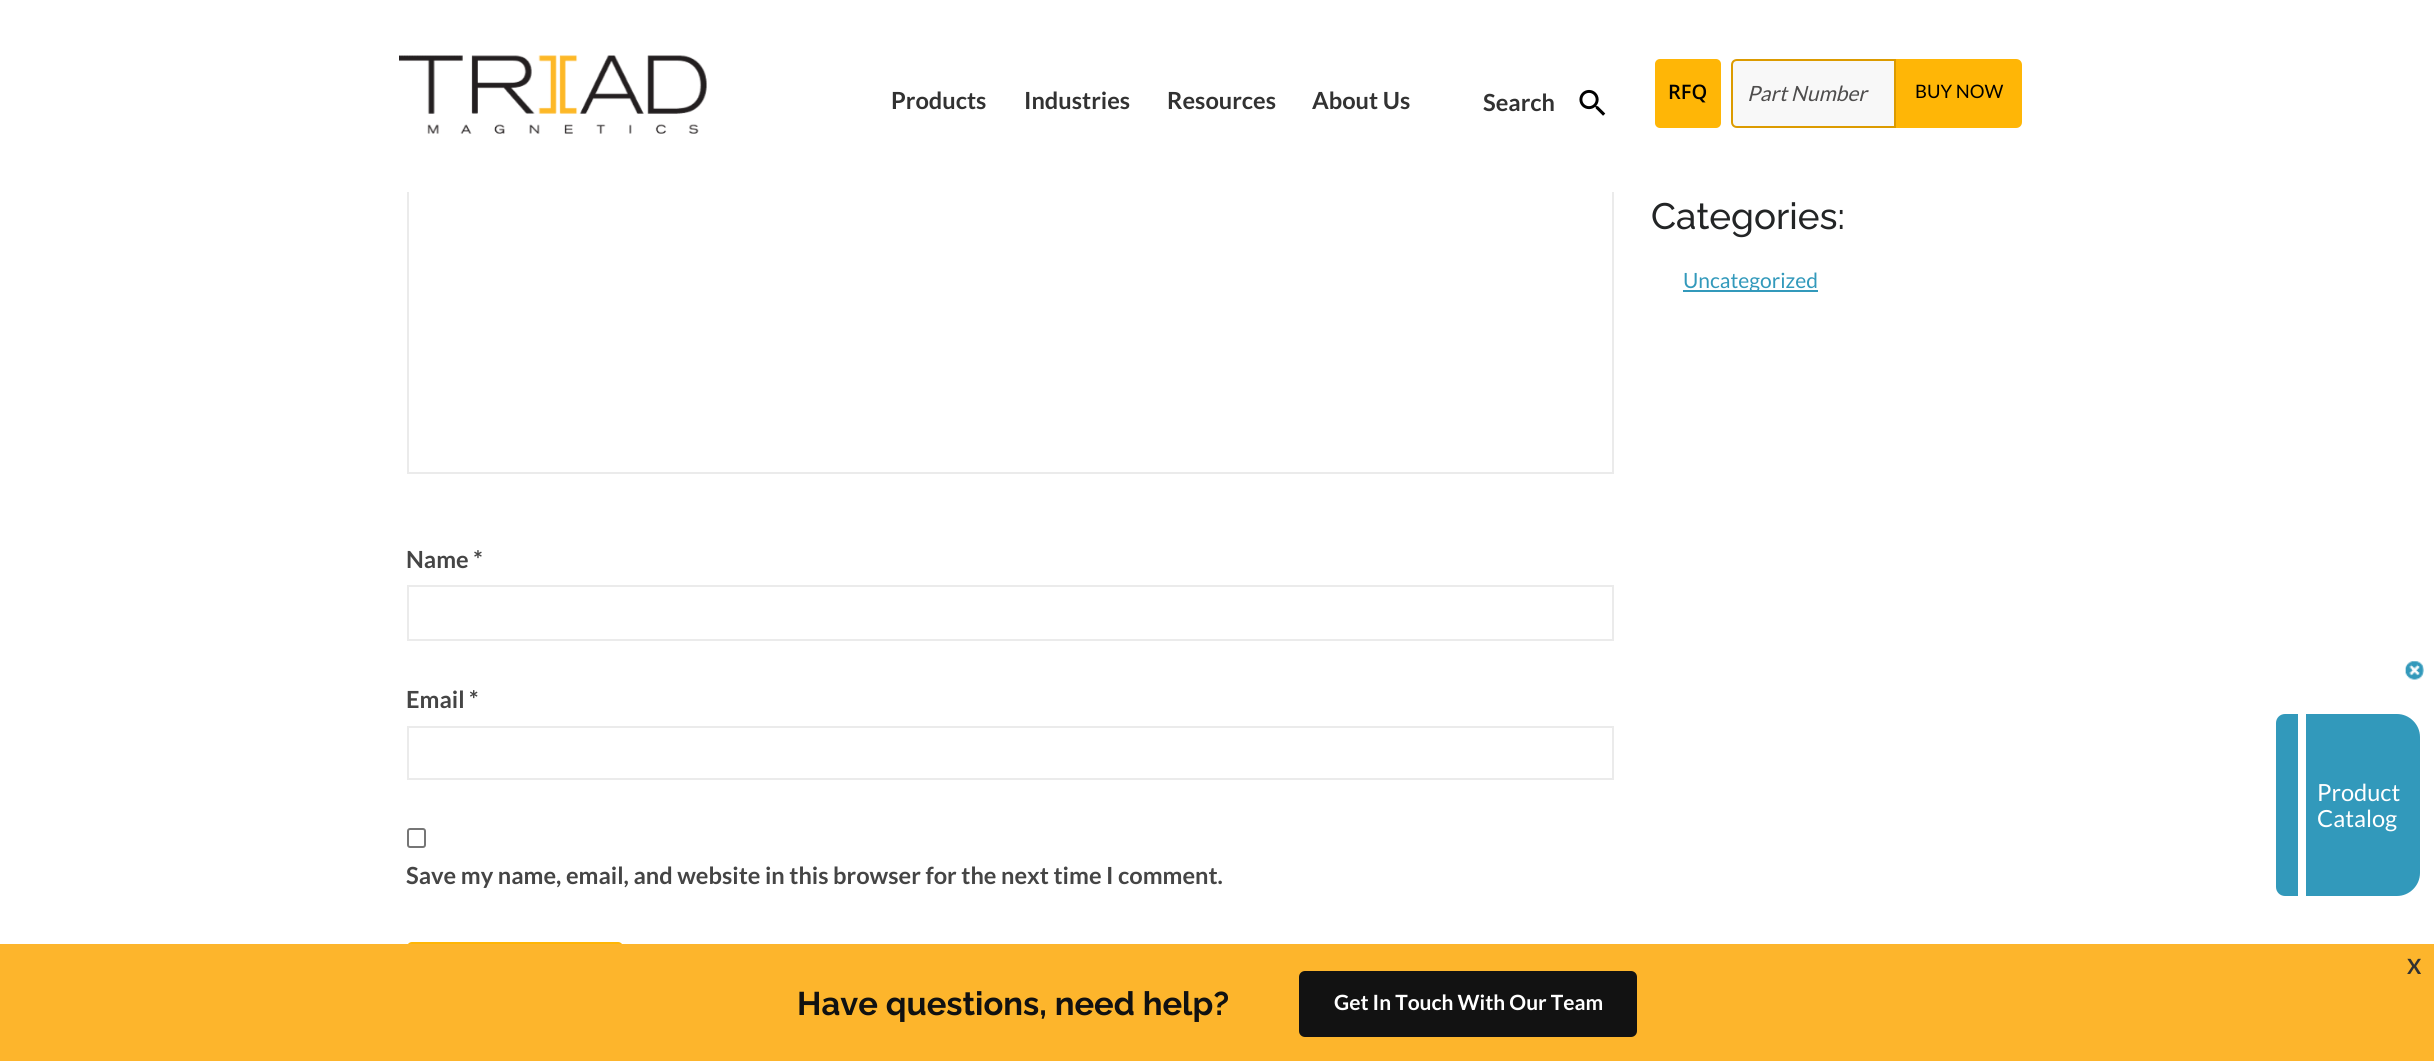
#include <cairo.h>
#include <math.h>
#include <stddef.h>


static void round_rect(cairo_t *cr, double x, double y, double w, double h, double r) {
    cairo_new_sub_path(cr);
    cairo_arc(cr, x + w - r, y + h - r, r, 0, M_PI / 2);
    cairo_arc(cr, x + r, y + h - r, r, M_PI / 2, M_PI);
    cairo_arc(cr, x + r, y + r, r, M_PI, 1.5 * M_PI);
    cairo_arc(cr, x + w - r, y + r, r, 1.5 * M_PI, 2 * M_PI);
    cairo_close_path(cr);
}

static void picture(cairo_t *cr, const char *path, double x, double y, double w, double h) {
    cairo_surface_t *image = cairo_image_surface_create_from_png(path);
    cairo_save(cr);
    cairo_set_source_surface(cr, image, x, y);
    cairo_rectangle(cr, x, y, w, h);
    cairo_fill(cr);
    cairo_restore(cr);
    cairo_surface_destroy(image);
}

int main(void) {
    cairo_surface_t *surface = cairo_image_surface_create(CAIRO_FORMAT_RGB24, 2434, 1061);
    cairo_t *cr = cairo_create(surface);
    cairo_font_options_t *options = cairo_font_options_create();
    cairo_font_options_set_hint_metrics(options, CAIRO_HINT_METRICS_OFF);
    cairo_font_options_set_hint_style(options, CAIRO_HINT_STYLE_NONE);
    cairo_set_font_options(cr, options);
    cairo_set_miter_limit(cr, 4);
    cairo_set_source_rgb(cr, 1, 1, 1);
    cairo_paint(cr);
    cairo_rectangle(cr, 408, 166, 1205, 307);
    cairo_set_source_rgb(cr, 0.918, 0.918, 0.918);
    cairo_stroke(cr);
    cairo_set_source_rgb(cr, 1, 1, 1);
    cairo_rectangle(cr, 407, 165, 1207, 27);
    cairo_fill(cr);
    picture(cr, "img1.png", 399, 55, 308, 79);
    cairo_select_font_face(cr, "Lato", CAIRO_FONT_SLANT_NORMAL, CAIRO_FONT_WEIGHT_BOLD);
    cairo_set_font_size(cr, 23.6);
    cairo_set_source_rgb(cr, 0.196, 0.196, 0.196);
    cairo_move_to(cr, 891, 109);
    cairo_show_text(cr, "Products");
    cairo_move_to(cr, 1024, 109);
    cairo_show_text(cr, "Industries");
    cairo_move_to(cr, 1167, 109);
    cairo_show_text(cr, "Resources");
    cairo_move_to(cr, 1312, 109);
    cairo_show_text(cr, "About Us");
    picture(cr, "img2.png", 1579, 89, 27, 27);
    cairo_move_to(cr, 1483, 111);
    cairo_show_text(cr, "Search");
    cairo_set_source_rgb(cr, 1, 0.714, 0.024);
    round_rect(cr, 1655, 59, 66, 69, 5);
    cairo_fill(cr);
    cairo_select_font_face(cr, "Open Sans SemiBold", CAIRO_FONT_SLANT_NORMAL, CAIRO_FONT_WEIGHT_NORMAL);
    cairo_set_font_size(cr, 20);
    cairo_set_source_rgb(cr, 0, 0, 0);
    cairo_move_to(cr, 1668, 99);
    cairo_show_text(cr, "RFQ");
    cairo_set_source_rgb(cr, 0.969, 0.969, 0.969);
    cairo_new_path(cr);
    cairo_move_to(cr, 1737, 60);
    cairo_line_to(cr, 1895, 60);
    cairo_line_to(cr, 1895, 127);
    cairo_line_to(cr, 1737, 127);
    cairo_curve_to(cr, 1734, 127, 1732, 125, 1732, 122);
    cairo_line_to(cr, 1732, 65);
    cairo_curve_to(cr, 1732, 62, 1734, 60, 1737, 60);
    cairo_close_path(cr);
    cairo_fill_preserve(cr);
    cairo_set_source_rgb(cr, 0.863, 0.608, 0);
    cairo_stroke(cr);
    cairo_select_font_face(cr, "Lato", CAIRO_FONT_SLANT_ITALIC, CAIRO_FONT_WEIGHT_NORMAL);
    cairo_set_font_size(cr, 21);
    cairo_set_source_rgb(cr, 0.306, 0.302, 0.302);
    cairo_move_to(cr, 1747, 101);
    cairo_show_text(cr, "Part Number");
    cairo_set_source_rgb(cr, 1, 0.714, 0.024);
    cairo_new_path(cr);
    cairo_move_to(cr, 1896, 59);
    cairo_line_to(cr, 2016, 59);
    cairo_curve_to(cr, 2019.5, 59, 2022, 61.5, 2022, 65);
    cairo_line_to(cr, 2022, 122);
    cairo_curve_to(cr, 2022, 125.5, 2019.5, 128, 2016, 128);
    cairo_line_to(cr, 1896, 128);
    cairo_close_path(cr);
    cairo_fill(cr);
    cairo_select_font_face(cr, "Lato", CAIRO_FONT_SLANT_NORMAL, CAIRO_FONT_WEIGHT_NORMAL);
    cairo_set_font_size(cr, 18.5);
    cairo_set_source_rgb(cr, 0, 0, 0);
    cairo_move_to(cr, 1915, 98);
    cairo_show_text(cr, "BUY NOW");
    cairo_select_font_face(cr, "Raleway Medium", CAIRO_FONT_SLANT_NORMAL, CAIRO_FONT_WEIGHT_NORMAL);
    cairo_set_font_size(cr, 36.75);
    cairo_set_source_rgb(cr, 0.137, 0.145, 0.149);
    cairo_move_to(cr, 1651, 229);
    cairo_show_text(cr, "Categories:");
    cairo_set_source_rgb(cr, 0.196, 0.6, 0.733);
    cairo_rectangle(cr, 1683, 290, 135, 2);
    cairo_fill(cr);
    cairo_select_font_face(cr, "Lato", CAIRO_FONT_SLANT_NORMAL, CAIRO_FONT_WEIGHT_NORMAL);
    cairo_set_font_size(cr, 21);
    cairo_move_to(cr, 1683, 288);
    cairo_show_text(cr, "Uncategorized");
    cairo_select_font_face(cr, "Lato", CAIRO_FONT_SLANT_NORMAL, CAIRO_FONT_WEIGHT_BOLD);
    cairo_set_font_size(cr, 23.6);
    cairo_set_source_rgb(cr, 0.271, 0.271, 0.271);
    cairo_move_to(cr, 406, 568);
    cairo_show_text(cr, "Name *");
    cairo_rectangle(cr, 408, 586, 1205, 54);
    cairo_set_source_rgb(cr, 0.918, 0.918, 0.918);
    cairo_stroke(cr);
    cairo_set_source_rgb(cr, 0.271, 0.271, 0.271);
    cairo_move_to(cr, 406, 708);
    cairo_show_text(cr, "Email *");
    cairo_rectangle(cr, 408, 727, 1205, 52);
    cairo_set_source_rgb(cr, 0.918, 0.918, 0.918);
    cairo_stroke(cr);
    round_rect(cr, 408, 829, 17, 18, 2);
    cairo_set_source_rgb(cr, 0.463, 0.463, 0.463);
    cairo_stroke(cr);
    cairo_set_source_rgb(cr, 0.271, 0.271, 0.271);
    cairo_move_to(cr, 406, 884);
    cairo_show_text(cr, "Save my name, email, and website in this browser for the next time I comment.");
    cairo_set_source_rgb(cr, 1, 0.714, 0.024);
    round_rect(cr, 407, 942, 216, 62, 5);
    cairo_fill(cr);
    picture(cr, "img3.png", 2405, 661, 19, 19);
    cairo_set_source_rgb(cr, 0.196, 0.6, 0.733);
    cairo_new_path(cr);
    cairo_move_to(cr, 2285, 714);
    cairo_line_to(cr, 2397, 714);
    cairo_curve_to(cr, 2409.5, 714, 2420, 724.5, 2420, 737);
    cairo_line_to(cr, 2420, 873);
    cairo_curve_to(cr, 2420, 885.5, 2409.5, 896, 2397, 896);
    cairo_line_to(cr, 2285, 896);
    cairo_curve_to(cr, 2280, 896, 2276, 892, 2276, 887);
    cairo_line_to(cr, 2276, 723);
    cairo_curve_to(cr, 2276, 718, 2280, 714, 2285, 714);
    cairo_close_path(cr);
    cairo_fill(cr);
    cairo_set_source_rgb(cr, 1, 1, 1);
    cairo_rectangle(cr, 2298, 714, 8, 182);
    cairo_fill(cr);
    cairo_select_font_face(cr, "Lato", CAIRO_FONT_SLANT_NORMAL, CAIRO_FONT_WEIGHT_NORMAL);
    cairo_move_to(cr, 2317, 801);
    cairo_show_text(cr, "Product");
    cairo_move_to(cr, 2317, 827);
    cairo_show_text(cr, "Catalog");
    cairo_set_source_rgb(cr, 0.992, 0.71, 0.173);
    cairo_rectangle(cr, 0, 944, 2434, 117);
    cairo_fill(cr);
    cairo_select_font_face(cr, "Lato", CAIRO_FONT_SLANT_NORMAL, CAIRO_FONT_WEIGHT_BOLD);
    cairo_set_font_size(cr, 21);
    cairo_set_source_rgb(cr, 0.196, 0.196, 0.196);
    cairo_move_to(cr, 2407, 974);
    cairo_show_text(cr, "X");
    cairo_select_font_face(cr, "Raleway", CAIRO_FONT_SLANT_NORMAL, CAIRO_FONT_WEIGHT_BOLD);
    cairo_set_font_size(cr, 32.75);
    cairo_set_source_rgb(cr, 0.067, 0.067, 0.067);
    cairo_move_to(cr, 797, 1015);
    cairo_show_text(cr, "Have questions, need help?");
    cairo_set_source_rgb(cr, 0.071, 0.071, 0.071);
    round_rect(cr, 1299, 971, 338, 66, 6);
    cairo_fill(cr);
    cairo_select_font_face(cr, "Lato", CAIRO_FONT_SLANT_NORMAL, CAIRO_FONT_WEIGHT_BOLD);
    cairo_set_font_size(cr, 21);
    cairo_set_source_rgb(cr, 1, 1, 1);
    cairo_move_to(cr, 1334, 1010);
    cairo_show_text(cr, "Get In Touch With Our Team");
    cairo_surface_write_to_png(surface, "page.png");
    cairo_font_options_destroy(options);
    cairo_destroy(cr);
    cairo_surface_destroy(surface);
    return 0;
}
